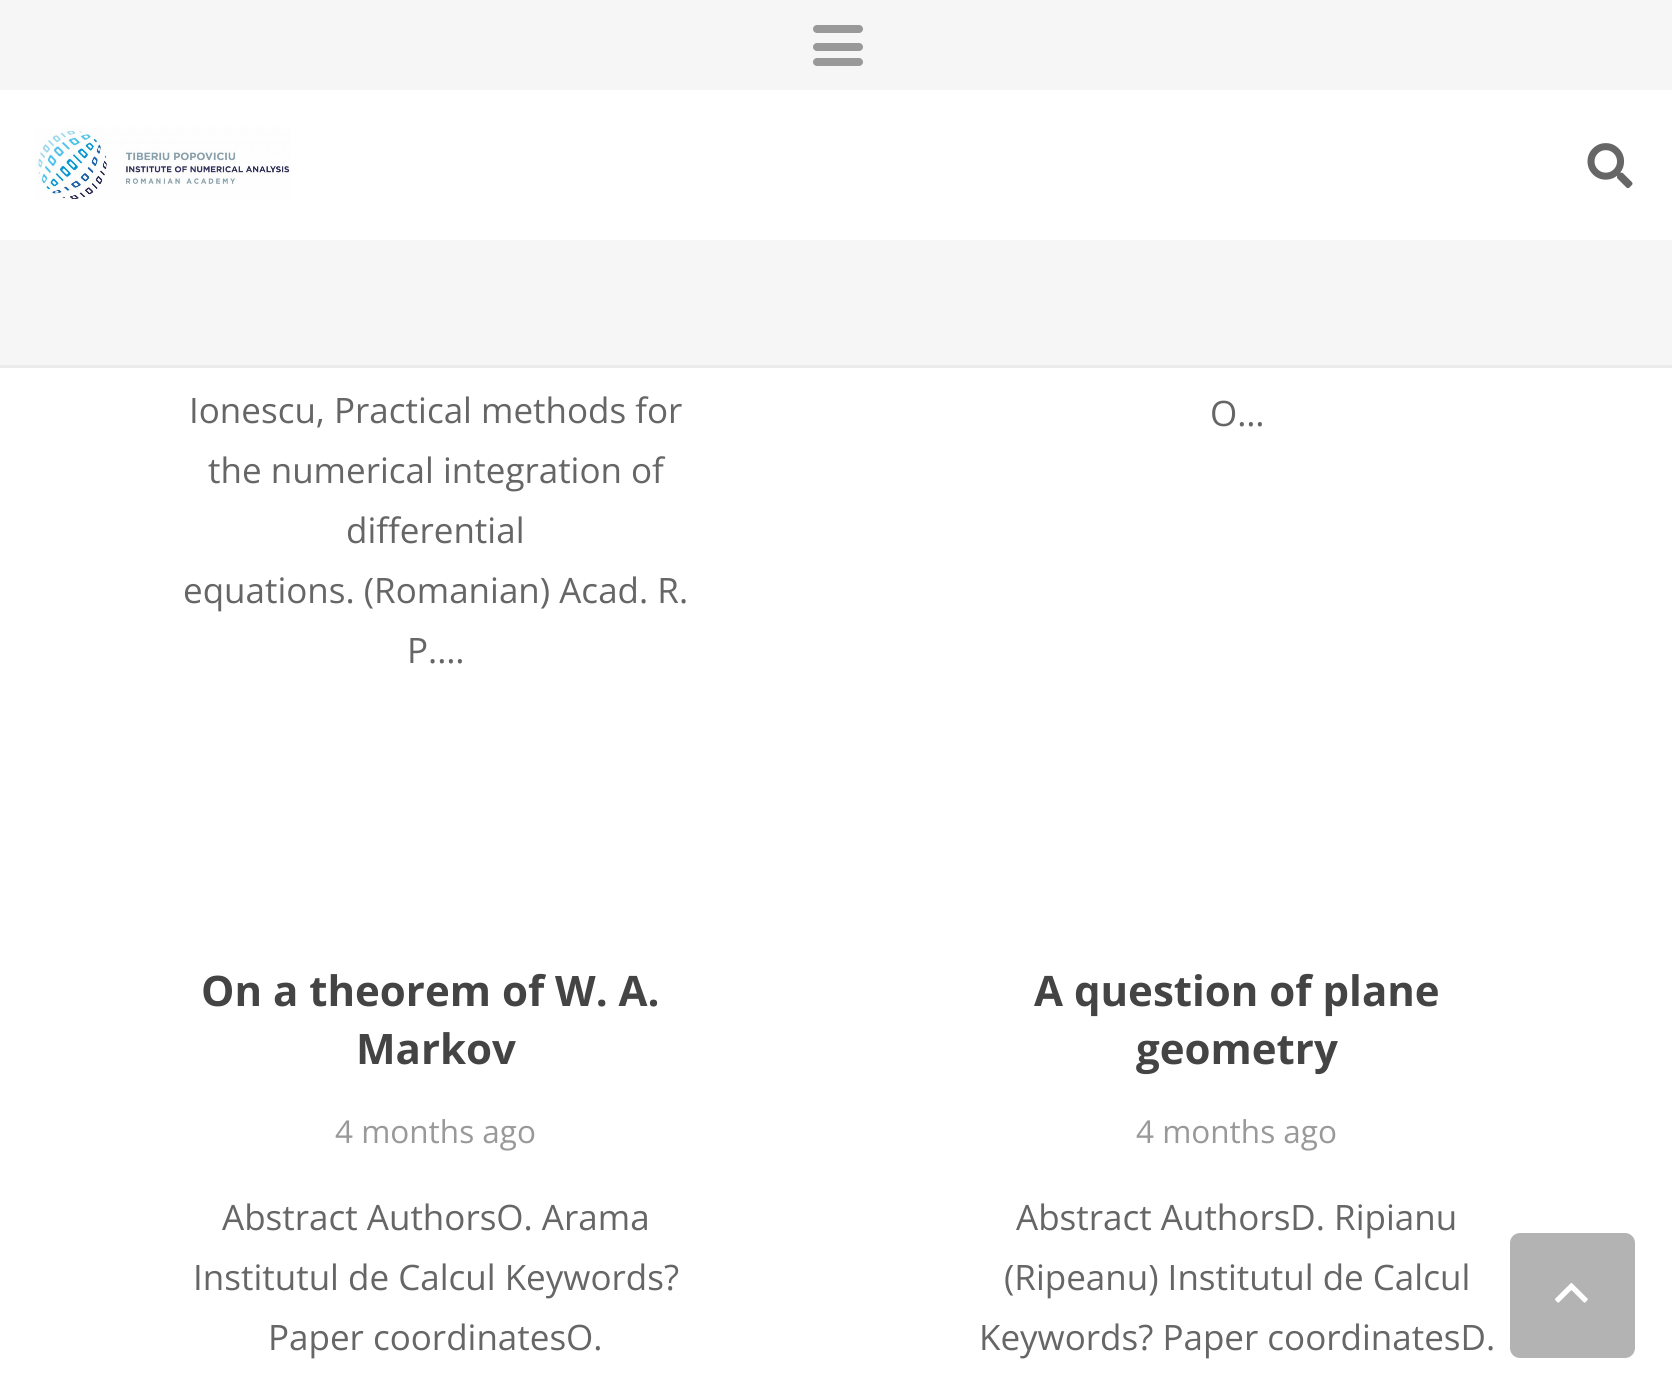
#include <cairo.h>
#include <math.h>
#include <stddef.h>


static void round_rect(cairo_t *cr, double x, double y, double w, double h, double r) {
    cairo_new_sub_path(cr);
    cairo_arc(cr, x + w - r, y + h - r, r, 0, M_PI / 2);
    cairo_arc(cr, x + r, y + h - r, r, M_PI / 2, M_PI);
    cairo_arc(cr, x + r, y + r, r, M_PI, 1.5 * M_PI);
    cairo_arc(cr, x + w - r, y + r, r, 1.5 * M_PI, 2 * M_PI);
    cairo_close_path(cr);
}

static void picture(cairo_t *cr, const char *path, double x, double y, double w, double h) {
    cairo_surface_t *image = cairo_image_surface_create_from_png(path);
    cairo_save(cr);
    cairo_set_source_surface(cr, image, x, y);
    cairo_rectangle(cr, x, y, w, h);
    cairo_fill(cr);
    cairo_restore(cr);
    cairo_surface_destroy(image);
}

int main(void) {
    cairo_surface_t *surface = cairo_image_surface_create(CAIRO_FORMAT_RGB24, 1672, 1394);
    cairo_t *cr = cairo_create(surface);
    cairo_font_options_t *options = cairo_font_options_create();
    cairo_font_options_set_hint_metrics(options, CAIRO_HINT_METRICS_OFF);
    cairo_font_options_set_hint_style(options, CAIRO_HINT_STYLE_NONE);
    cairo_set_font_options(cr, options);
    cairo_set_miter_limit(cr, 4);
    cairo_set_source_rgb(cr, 1, 1, 1);
    cairo_paint(cr);
    cairo_set_source_rgb(cr, 0.961, 0.961, 0.961);
    cairo_rectangle(cr, 0, 0, 1672, 90);
    cairo_fill(cr);
    cairo_set_source_rgb(cr, 0.6, 0.6, 0.6);
    round_rect(cr, 813, 43, 50, 8, 4);
    cairo_fill(cr);
    round_rect(cr, 813, 25, 50, 8, 4);
    cairo_fill(cr);
    round_rect(cr, 813, 58, 50, 8, 4);
    cairo_fill(cr);
    picture(cr, "img1.png", 35, 127, 256, 73);
    picture(cr, "img2.png", 1587, 143, 46, 46);
    cairo_set_source_rgba(cr, 0, 0, 0, 0.08);
    cairo_new_path(cr);
    cairo_move_to(cr, 0, 365);
    cairo_line_to(cr, 0, 368);
    cairo_line_to(cr, 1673, 368);
    cairo_line_to(cr, 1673, 243);
    cairo_line_to(cr, 1672, 243);
    cairo_line_to(cr, 1672, 365);
    cairo_close_path(cr);
    cairo_fill(cr);
    cairo_set_source_rgb(cr, 0.961, 0.961, 0.961);
    cairo_rectangle(cr, 0, 240, 1672, 125);
    cairo_fill(cr);
    cairo_select_font_face(cr, "Open Sans", CAIRO_FONT_SLANT_NORMAL, CAIRO_FONT_WEIGHT_NORMAL);
    cairo_set_font_size(cr, 35);
    cairo_set_source_rgb(cr, 0.4, 0.4, 0.4);
    cairo_move_to(cr, 189, 423);
    cairo_show_text(cr, "Ionescu, Practical methods for");
    cairo_move_to(cr, 208, 483);
    cairo_show_text(cr, "the numerical integration of");
    cairo_move_to(cr, 346, 543);
    cairo_show_text(cr, "differential");
    cairo_move_to(cr, 183, 603);
    cairo_show_text(cr, "equations. (Romanian) Acad. R.");
    cairo_move_to(cr, 407, 663);
    cairo_show_text(cr, "P.…");
    cairo_move_to(cr, 1210, 426);
    cairo_show_text(cr, "O…");
    cairo_select_font_face(cr, "Open Sans", CAIRO_FONT_SLANT_NORMAL, CAIRO_FONT_WEIGHT_BOLD);
    cairo_set_font_size(cr, 42);
    cairo_set_source_rgb(cr, 0.267, 0.267, 0.267);
    cairo_move_to(cr, 201, 1006);
    cairo_show_text(cr, "On a theorem of W. A.");
    cairo_move_to(cr, 356, 1064);
    cairo_show_text(cr, "Markov");
    cairo_select_font_face(cr, "Open Sans", CAIRO_FONT_SLANT_NORMAL, CAIRO_FONT_WEIGHT_NORMAL);
    cairo_set_font_size(cr, 31.5);
    cairo_set_source_rgb(cr, 0.6, 0.6, 0.6);
    cairo_move_to(cr, 335, 1143);
    cairo_show_text(cr, "4 months ago");
    cairo_set_font_size(cr, 35);
    cairo_set_source_rgb(cr, 0.4, 0.4, 0.4);
    cairo_move_to(cr, 222, 1230);
    cairo_show_text(cr, "Abstract AuthorsO. Arama");
    cairo_move_to(cr, 193, 1290);
    cairo_show_text(cr, "Institutul de Calcul Keywords?");
    cairo_move_to(cr, 268, 1350);
    cairo_show_text(cr, "Paper coordinatesO.");
    cairo_select_font_face(cr, "Open Sans", CAIRO_FONT_SLANT_NORMAL, CAIRO_FONT_WEIGHT_BOLD);
    cairo_set_font_size(cr, 42);
    cairo_set_source_rgb(cr, 0.267, 0.267, 0.267);
    cairo_move_to(cr, 1034, 1006);
    cairo_show_text(cr, "A question of plane");
    cairo_move_to(cr, 1136, 1064);
    cairo_show_text(cr, "geometry");
    cairo_select_font_face(cr, "Open Sans", CAIRO_FONT_SLANT_NORMAL, CAIRO_FONT_WEIGHT_NORMAL);
    cairo_set_font_size(cr, 31.5);
    cairo_set_source_rgb(cr, 0.6, 0.6, 0.6);
    cairo_move_to(cr, 1136, 1143);
    cairo_show_text(cr, "4 months ago");
    cairo_set_font_size(cr, 35);
    cairo_set_source_rgb(cr, 0.4, 0.4, 0.4);
    cairo_move_to(cr, 1016, 1230);
    cairo_show_text(cr, "Abstract AuthorsD. Ripianu");
    cairo_move_to(cr, 1004, 1290);
    cairo_show_text(cr, "(Ripeanu) Institutul de Calcul");
    cairo_move_to(cr, 979, 1350);
    cairo_show_text(cr, "Keywords? Paper coordinatesD.");
    cairo_set_source_rgb(cr, 0.702, 0.702, 0.702);
    round_rect(cr, 1510, 1233, 125, 125, 10);
    cairo_fill(cr);
    picture(cr, "img3.png", 1555, 1283, 33, 20);
    cairo_surface_write_to_png(surface, "page.png");
    cairo_font_options_destroy(options);
    cairo_destroy(cr);
    cairo_surface_destroy(surface);
    return 0;
}
